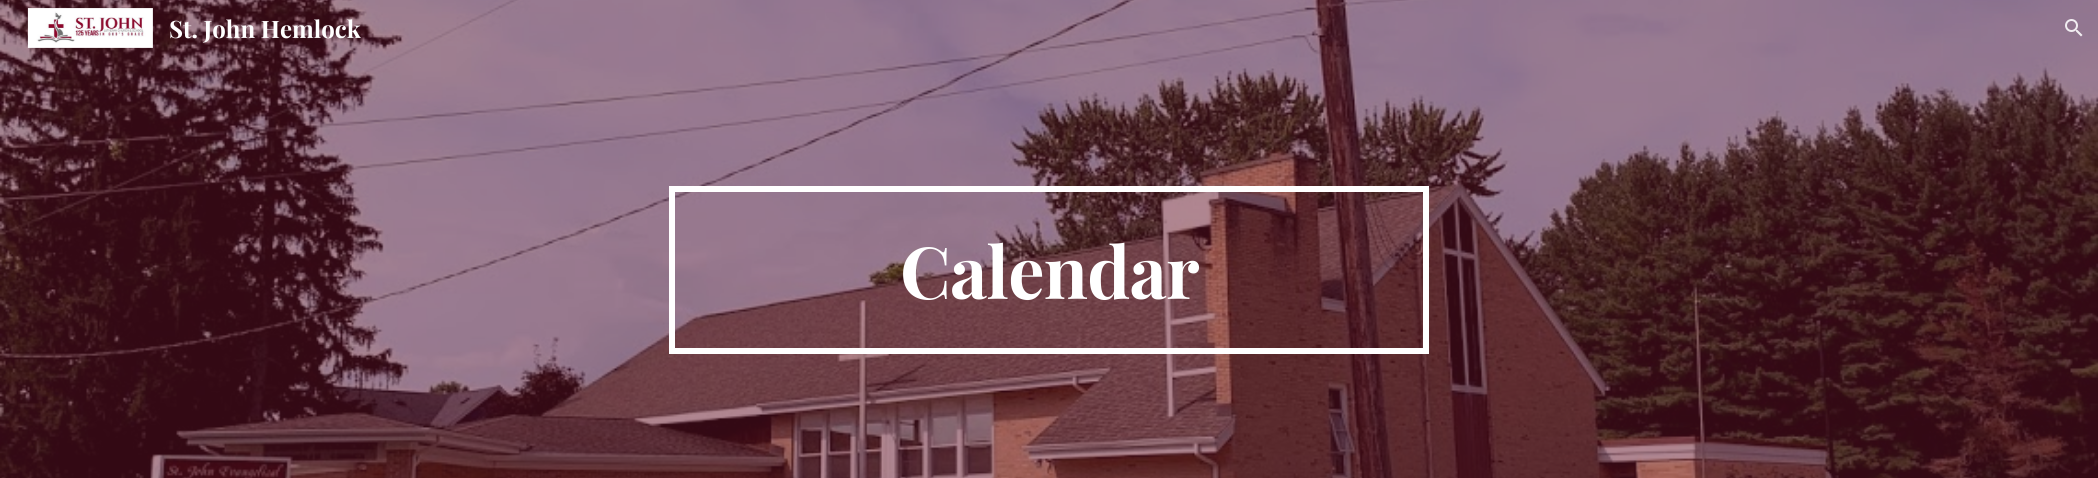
#include <cairo.h>
#include <math.h>
#include <stddef.h>


static void spaced_text(cairo_t *cr, double x, double y, const char *s, double letter, double word) {
    cairo_move_to(cr, x, y);
    while (*s) {
        char ch[5] = {0};
        int n = 0;
        do ch[n++] = *s++; while ((*s & 0xC0) == 0x80);
        cairo_show_text(cr, ch);
        cairo_rel_move_to(cr, letter + word * (*ch == ' '), 0);
    }
}

static void picture(cairo_t *cr, const char *path, double x, double y, double w, double h) {
    cairo_surface_t *image = cairo_image_surface_create_from_png(path);
    cairo_save(cr);
    cairo_set_source_surface(cr, image, x, y);
    cairo_rectangle(cr, x, y, w, h);
    cairo_fill(cr);
    cairo_restore(cr);
    cairo_surface_destroy(image);
}

int main(void) {
    cairo_surface_t *surface = cairo_image_surface_create(CAIRO_FORMAT_RGB24, 2098, 478);
    cairo_t *cr = cairo_create(surface);
    cairo_font_options_t *options = cairo_font_options_create();
    cairo_font_options_set_hint_metrics(options, CAIRO_HINT_METRICS_OFF);
    cairo_font_options_set_hint_style(options, CAIRO_HINT_STYLE_NONE);
    cairo_set_font_options(cr, options);
    cairo_set_miter_limit(cr, 4);
    cairo_set_source_rgb(cr, 1, 1, 1);
    cairo_paint(cr);
    picture(cr, "img3.png", 0, 0, 2098, 478);
    picture(cr, "img1.png", 27, 8, 126, 40);
    cairo_select_font_face(cr, "Playfair Display", CAIRO_FONT_SLANT_NORMAL, CAIRO_FONT_WEIGHT_BOLD);
    cairo_set_font_size(cr, 24);
    cairo_set_source_rgb(cr, 1, 1, 1);
    cairo_move_to(cr, 169, 38);
    cairo_show_text(cr, "St. John Hemlock");
    picture(cr, "img2.png", 2065, 19, 18, 18);
    cairo_rectangle(cr, 672, 189, 754, 162);
    cairo_set_line_width(cr, 6);
    cairo_stroke(cr);
    cairo_set_font_size(cr, 72);
    spaced_text(cr, 900, 299, "Calendar", -0.75, 0);
    cairo_surface_write_to_png(surface, "page.png");
    cairo_font_options_destroy(options);
    cairo_destroy(cr);
    cairo_surface_destroy(surface);
    return 0;
}
